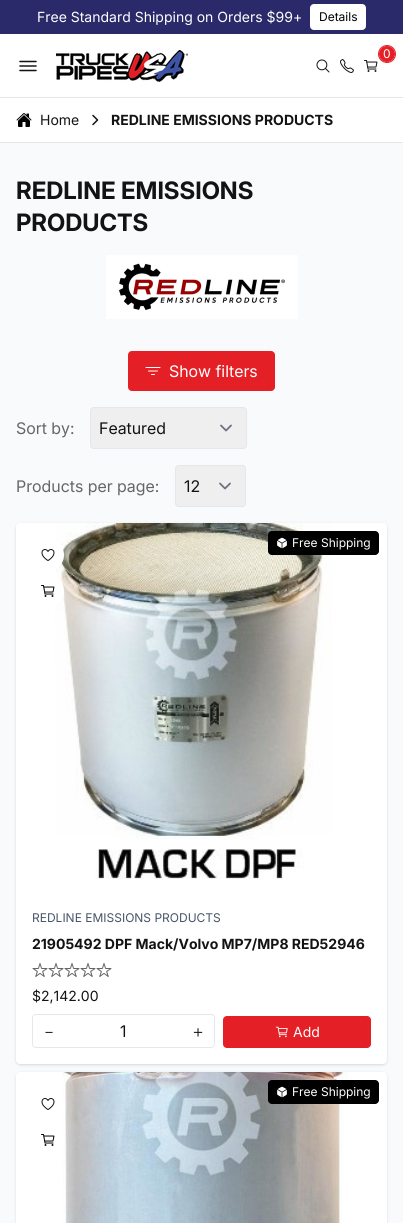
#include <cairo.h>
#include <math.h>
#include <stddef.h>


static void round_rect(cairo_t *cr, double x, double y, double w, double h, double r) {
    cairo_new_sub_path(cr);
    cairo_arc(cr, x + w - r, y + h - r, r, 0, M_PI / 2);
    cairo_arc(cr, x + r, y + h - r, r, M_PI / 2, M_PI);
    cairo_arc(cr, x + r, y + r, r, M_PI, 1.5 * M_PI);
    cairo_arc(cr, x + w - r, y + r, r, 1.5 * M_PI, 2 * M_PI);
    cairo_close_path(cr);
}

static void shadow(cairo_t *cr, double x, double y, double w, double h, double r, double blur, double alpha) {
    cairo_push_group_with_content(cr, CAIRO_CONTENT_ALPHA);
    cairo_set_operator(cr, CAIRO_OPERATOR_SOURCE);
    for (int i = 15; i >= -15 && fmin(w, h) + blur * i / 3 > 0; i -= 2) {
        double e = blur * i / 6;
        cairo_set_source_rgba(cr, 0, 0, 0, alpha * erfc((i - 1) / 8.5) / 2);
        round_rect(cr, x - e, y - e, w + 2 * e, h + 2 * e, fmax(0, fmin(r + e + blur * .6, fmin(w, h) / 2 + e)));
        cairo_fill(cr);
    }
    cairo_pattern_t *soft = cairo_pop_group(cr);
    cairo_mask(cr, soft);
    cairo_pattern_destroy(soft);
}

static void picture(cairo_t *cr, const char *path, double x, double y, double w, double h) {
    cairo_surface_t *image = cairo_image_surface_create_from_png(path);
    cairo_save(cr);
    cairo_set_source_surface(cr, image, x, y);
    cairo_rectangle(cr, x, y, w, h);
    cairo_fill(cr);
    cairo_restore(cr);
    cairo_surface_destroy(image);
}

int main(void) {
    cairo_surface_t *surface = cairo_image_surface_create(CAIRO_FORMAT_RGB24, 403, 1223);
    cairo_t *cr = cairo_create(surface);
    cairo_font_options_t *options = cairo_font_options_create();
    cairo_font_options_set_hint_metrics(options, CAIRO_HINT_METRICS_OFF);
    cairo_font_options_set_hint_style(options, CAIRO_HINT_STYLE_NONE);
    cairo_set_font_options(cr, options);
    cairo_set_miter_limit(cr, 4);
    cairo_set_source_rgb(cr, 0.973, 0.98, 0.988);
    cairo_paint(cr);
    cairo_set_source_rgb(cr, 0.165, 0.161, 0.416);
    cairo_rectangle(cr, 0, 0, 403, 34);
    cairo_fill(cr);
    cairo_select_font_face(cr, "Inter", CAIRO_FONT_SLANT_NORMAL, CAIRO_FONT_WEIGHT_NORMAL);
    cairo_set_font_size(cr, 14);
    cairo_set_source_rgb(cr, 1, 1, 1);
    cairo_move_to(cr, 37, 22);
    cairo_show_text(cr, "Free Standard Shipping on Orders $99+");
    round_rect(cr, 310, 4, 56, 26, 4);
    cairo_fill(cr);
    cairo_set_font_size(cr, 12);
    cairo_set_source_rgb(cr, 0, 0, 0);
    cairo_move_to(cr, 319, 21);
    cairo_show_text(cr, "Details");
    cairo_set_source_rgb(cr, 1, 1, 1);
    cairo_rectangle(cr, 0, 34, 403, 63);
    cairo_fill(cr);
    cairo_set_source_rgb(cr, 0.898, 0.906, 0.922);
    cairo_rectangle(cr, 0, 97, 403, 1);
    cairo_fill(cr);
    cairo_new_path(cr);
    cairo_move_to(cr, 20, 61.5);
    cairo_line_to(cr, 36, 61.5);
    cairo_move_to(cr, 20, 66);
    cairo_line_to(cr, 36, 66);
    cairo_move_to(cr, 20, 70.5);
    cairo_line_to(cr, 36, 70.5);
    cairo_set_source_rgb(cr, 0.075, 0.075, 0.075);
    cairo_set_line_width(cr, 1.5);
    cairo_set_line_cap(cr, CAIRO_LINE_CAP_ROUND);
    cairo_stroke(cr);
    picture(cr, "img1.png", 56, 50, 132, 32);
    cairo_arc(cr, 387, 54, 8.5, 0, 2 * M_PI);
    cairo_set_source_rgb(cr, 0.894, 0.122, 0.149);
    cairo_set_line_width(cr, 1);
    cairo_set_line_cap(cr, CAIRO_LINE_CAP_BUTT);
    cairo_stroke(cr);
    cairo_arc(cr, 387, 54, 8, 0, 2 * M_PI);
    cairo_fill(cr);
    cairo_set_source_rgb(cr, 1, 1, 1);
    cairo_move_to(cr, 383, 58);
    cairo_show_text(cr, "0");
    picture(cr, "img2.png", 364, 60, 14, 12);
    picture(cr, "img3.png", 316, 59, 14, 14);
    picture(cr, "img4.png", 340, 59, 14, 14);
    cairo_rectangle(cr, 0, 98, 403, 44);
    cairo_fill(cr);
    cairo_set_source_rgb(cr, 0.898, 0.906, 0.922);
    cairo_rectangle(cr, 0, 142, 403, 1);
    cairo_fill(cr);
    picture(cr, "img5.png", 16, 113, 16, 14);
    cairo_set_font_size(cr, 14);
    cairo_set_source_rgb(cr, 0.075, 0.075, 0.075);
    cairo_move_to(cr, 40, 125);
    cairo_show_text(cr, "Home");
    cairo_new_path(cr);
    cairo_move_to(cr, 93, 124.5);
    cairo_line_to(cr, 97.5, 120);
    cairo_line_to(cr, 93, 115.5);
    cairo_set_line_width(cr, 1.5);
    cairo_set_line_cap(cr, CAIRO_LINE_CAP_ROUND);
    cairo_set_line_join(cr, CAIRO_LINE_JOIN_ROUND);
    cairo_stroke(cr);
    cairo_select_font_face(cr, "Inter", CAIRO_FONT_SLANT_NORMAL, CAIRO_FONT_WEIGHT_BOLD);
    cairo_move_to(cr, 111, 125);
    cairo_show_text(cr, "REDLINE EMISSIONS PRODUCTS");
    cairo_select_font_face(cr, "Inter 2", CAIRO_FONT_SLANT_NORMAL, CAIRO_FONT_WEIGHT_BOLD);
    cairo_set_font_size(cr, 24);
    cairo_move_to(cr, 16, 199);
    cairo_show_text(cr, "REDLINE EMISSIONS");
    cairo_move_to(cr, 16, 231);
    cairo_show_text(cr, "PRODUCTS");
    picture(cr, "img6.png", 106, 255, 192, 64);
    cairo_set_source_rgb(cr, 0.894, 0.122, 0.149);
    round_rect(cr, 128.5, 351.5, 146, 39, 3.5);
    cairo_fill_preserve(cr);
    cairo_set_line_width(cr, 1);
    cairo_set_line_cap(cr, CAIRO_LINE_CAP_BUTT);
    cairo_set_line_join(cr, CAIRO_LINE_JOIN_MITER);
    cairo_stroke(cr);
    cairo_new_path(cr);
    cairo_move_to(cr, 146, 367.5);
    cairo_line_to(cr, 160, 367.5);
    cairo_move_to(cr, 148.5, 371);
    cairo_line_to(cr, 157.5, 371);
    cairo_move_to(cr, 151.5, 374.5);
    cairo_line_to(cr, 154.5, 374.5);
    cairo_set_source_rgb(cr, 1, 1, 1);
    cairo_set_line_cap(cr, CAIRO_LINE_CAP_ROUND);
    cairo_set_line_join(cr, CAIRO_LINE_JOIN_ROUND);
    cairo_stroke(cr);
    cairo_select_font_face(cr, "Inter 2", CAIRO_FONT_SLANT_NORMAL, CAIRO_FONT_WEIGHT_NORMAL);
    cairo_set_font_size(cr, 16);
    cairo_move_to(cr, 169, 377);
    cairo_show_text(cr, "Show filters");
    cairo_set_source_rgb(cr, 0.4, 0.4, 0.4);
    cairo_move_to(cr, 16, 434);
    cairo_show_text(cr, "Sort by:");
    cairo_set_source_rgb(cr, 0.937, 0.937, 0.937);
    round_rect(cr, 90, 407, 157, 42, 4);
    cairo_fill(cr);
    cairo_new_path(cr);
    cairo_move_to(cr, 221, 425.5);
    cairo_line_to(cr, 226, 430.5);
    cairo_line_to(cr, 231, 425.5);
    cairo_set_source_rgb(cr, 0.42, 0.447, 0.502);
    cairo_set_line_width(cr, 1.8);
    cairo_stroke(cr);
    round_rect(cr, 90.5, 407.5, 156, 41, 3.5);
    cairo_set_source_rgb(cr, 0.898, 0.906, 0.922);
    cairo_set_line_width(cr, 1);
    cairo_set_line_cap(cr, CAIRO_LINE_CAP_BUTT);
    cairo_set_line_join(cr, CAIRO_LINE_JOIN_MITER);
    cairo_stroke(cr);
    cairo_set_source_rgb(cr, 0.075, 0.075, 0.075);
    cairo_move_to(cr, 99, 434);
    cairo_show_text(cr, "Featured");
    cairo_set_source_rgb(cr, 0.4, 0.4, 0.4);
    cairo_move_to(cr, 16, 492);
    cairo_show_text(cr, "Products per page:");
    cairo_set_source_rgb(cr, 0.937, 0.937, 0.937);
    round_rect(cr, 175, 465, 71, 42, 4);
    cairo_fill(cr);
    cairo_new_path(cr);
    cairo_move_to(cr, 220, 483.5);
    cairo_line_to(cr, 225, 488.5);
    cairo_line_to(cr, 230, 483.5);
    cairo_set_source_rgb(cr, 0.42, 0.447, 0.502);
    cairo_set_line_width(cr, 1.8);
    cairo_set_line_cap(cr, CAIRO_LINE_CAP_ROUND);
    cairo_set_line_join(cr, CAIRO_LINE_JOIN_ROUND);
    cairo_stroke(cr);
    round_rect(cr, 175.5, 465.5, 70, 41, 3.5);
    cairo_set_source_rgb(cr, 0.898, 0.906, 0.922);
    cairo_set_line_width(cr, 1);
    cairo_set_line_cap(cr, CAIRO_LINE_CAP_BUTT);
    cairo_set_line_join(cr, CAIRO_LINE_JOIN_MITER);
    cairo_stroke(cr);
    cairo_set_source_rgb(cr, 0.075, 0.075, 0.075);
    cairo_move_to(cr, 184, 492);
    cairo_show_text(cr, "12");
    cairo_set_source_rgb(cr, 0, 0, 0);
    shadow(cr, 17, 525, 369, 539, 3, 1, 0.1);
    shadow(cr, 16, 524, 371, 541, 4, 1.5, 0.1);
    cairo_set_source_rgb(cr, 1, 1, 1);
    round_rect(cr, 16, 523, 371, 541, 4);
    cairo_fill(cr);
    picture(cr, "img7.png", 55, 523, 277, 356);
    cairo_arc(cr, 48, 555, 16, 0, 2 * M_PI);
    cairo_fill(cr);
    picture(cr, "img8.png", 41, 549, 14, 12);
    cairo_arc(cr, 48, 591, 16, 0, 2 * M_PI);
    cairo_fill(cr);
    picture(cr, "img9.png", 41, 585, 14, 12);
    cairo_set_source_rgb(cr, 0, 0, 0);
    round_rect(cr, 268, 531, 111, 24, 4);
    cairo_fill(cr);
    picture(cr, "img10.png", 277, 537, 10, 12);
    cairo_select_font_face(cr, "Inter", CAIRO_FONT_SLANT_NORMAL, CAIRO_FONT_WEIGHT_NORMAL);
    cairo_set_font_size(cr, 12);
    cairo_set_source_rgb(cr, 1, 1, 1);
    cairo_move_to(cr, 292, 547);
    cairo_show_text(cr, "Free Shipping");
    cairo_set_source_rgb(cr, 0.278, 0.333, 0.412);
    cairo_move_to(cr, 32, 922);
    cairo_show_text(cr, "REDLINE EMISSIONS PRODUCTS");
    cairo_select_font_face(cr, "Inter", CAIRO_FONT_SLANT_NORMAL, CAIRO_FONT_WEIGHT_BOLD);
    cairo_set_font_size(cr, 14);
    cairo_set_source_rgb(cr, 0.075, 0.075, 0.075);
    cairo_move_to(cr, 32, 949);
    cairo_show_text(cr, "21905492 DPF Mack/Volvo MP7/MP8 RED52946");
    picture(cr, "img11.png", 32, 963, 16, 14);
    picture(cr, "img11.png", 48, 963, 16, 14);
    picture(cr, "img11.png", 64, 963, 16, 14);
    picture(cr, "img11.png", 80, 963, 16, 14);
    picture(cr, "img11.png", 96, 963, 16, 14);
    cairo_select_font_face(cr, "Inter", CAIRO_FONT_SLANT_NORMAL, CAIRO_FONT_WEIGHT_NORMAL);
    cairo_move_to(cr, 32, 1001);
    cairo_show_text(cr, "$2,142.00");
    round_rect(cr, 32.5, 1014.5, 182, 33, 3.5);
    cairo_set_source_rgb(cr, 0.898, 0.906, 0.922);
    cairo_stroke(cr);
    cairo_select_font_face(cr, "WenQuanYi Zen Hei Medium", CAIRO_FONT_SLANT_NORMAL, CAIRO_FONT_WEIGHT_NORMAL);
    cairo_set_font_size(cr, 16);
    cairo_set_source_rgb(cr, 0.075, 0.075, 0.075);
    cairo_move_to(cr, 41, 1037);
    cairo_show_text(cr, "－");
    cairo_select_font_face(cr, "Inter 2", CAIRO_FONT_SLANT_NORMAL, CAIRO_FONT_WEIGHT_NORMAL);
    cairo_move_to(cr, 120, 1037);
    cairo_show_text(cr, "1");
    cairo_select_font_face(cr, "WenQuanYi Zen Hei Medium", CAIRO_FONT_SLANT_NORMAL, CAIRO_FONT_WEIGHT_NORMAL);
    cairo_move_to(cr, 190, 1037);
    cairo_show_text(cr, "＋");
    cairo_set_source_rgb(cr, 0.894, 0.122, 0.149);
    round_rect(cr, 223.5, 1016.5, 147, 31, 3.5);
    cairo_fill_preserve(cr);
    cairo_stroke(cr);
    picture(cr, "img12.png", 275, 1026, 13, 12);
    cairo_select_font_face(cr, "Inter", CAIRO_FONT_SLANT_NORMAL, CAIRO_FONT_WEIGHT_NORMAL);
    cairo_set_font_size(cr, 14);
    cairo_set_source_rgb(cr, 1, 1, 1);
    cairo_move_to(cr, 293, 1037);
    cairo_show_text(cr, "Add");
    cairo_set_source_rgb(cr, 0, 0, 0);
    shadow(cr, 16, 1073, 371, 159, 4, 1.5, 0.1);
    cairo_set_source_rgb(cr, 1, 1, 1);
    round_rect(cr, 16, 1072, 371, 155, 4);
    cairo_fill(cr);
    picture(cr, "img13.png", 62, 1072, 286, 151);
    cairo_set_source_rgb(cr, 0, 0, 0);
    round_rect(cr, 268, 1080, 111, 24, 4);
    cairo_fill(cr);
    picture(cr, "img10.png", 277, 1086, 10, 12);
    cairo_set_font_size(cr, 12);
    cairo_set_source_rgb(cr, 1, 1, 1);
    cairo_move_to(cr, 292, 1096);
    cairo_show_text(cr, "Free Shipping");
    picture(cr, "img8.png", 41, 1098, 14, 12);
    cairo_arc(cr, 48, 1140, 16, 0, 2 * M_PI);
    cairo_fill(cr);
    picture(cr, "img9.png", 41, 1134, 14, 12);
    cairo_surface_write_to_png(surface, "page.png");
    cairo_font_options_destroy(options);
    cairo_destroy(cr);
    cairo_surface_destroy(surface);
    return 0;
}
